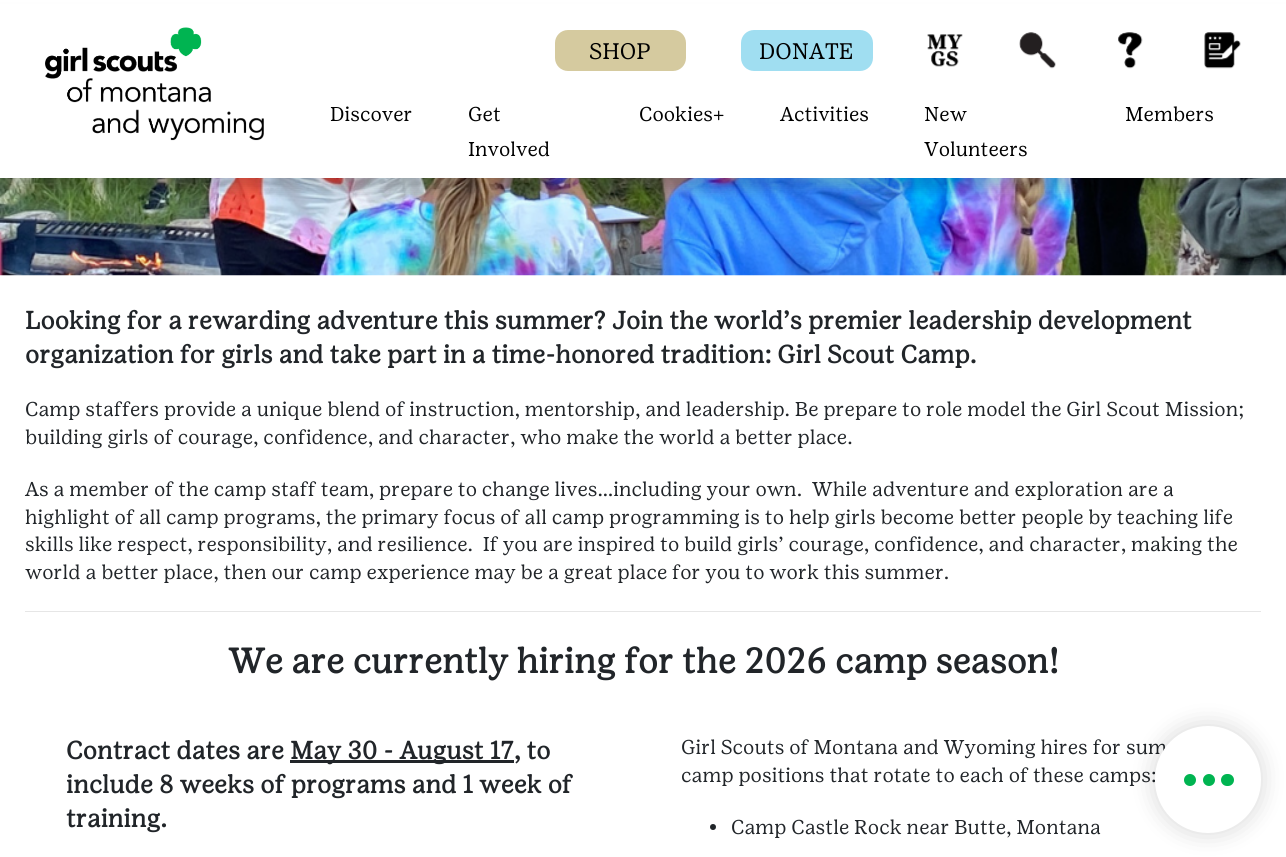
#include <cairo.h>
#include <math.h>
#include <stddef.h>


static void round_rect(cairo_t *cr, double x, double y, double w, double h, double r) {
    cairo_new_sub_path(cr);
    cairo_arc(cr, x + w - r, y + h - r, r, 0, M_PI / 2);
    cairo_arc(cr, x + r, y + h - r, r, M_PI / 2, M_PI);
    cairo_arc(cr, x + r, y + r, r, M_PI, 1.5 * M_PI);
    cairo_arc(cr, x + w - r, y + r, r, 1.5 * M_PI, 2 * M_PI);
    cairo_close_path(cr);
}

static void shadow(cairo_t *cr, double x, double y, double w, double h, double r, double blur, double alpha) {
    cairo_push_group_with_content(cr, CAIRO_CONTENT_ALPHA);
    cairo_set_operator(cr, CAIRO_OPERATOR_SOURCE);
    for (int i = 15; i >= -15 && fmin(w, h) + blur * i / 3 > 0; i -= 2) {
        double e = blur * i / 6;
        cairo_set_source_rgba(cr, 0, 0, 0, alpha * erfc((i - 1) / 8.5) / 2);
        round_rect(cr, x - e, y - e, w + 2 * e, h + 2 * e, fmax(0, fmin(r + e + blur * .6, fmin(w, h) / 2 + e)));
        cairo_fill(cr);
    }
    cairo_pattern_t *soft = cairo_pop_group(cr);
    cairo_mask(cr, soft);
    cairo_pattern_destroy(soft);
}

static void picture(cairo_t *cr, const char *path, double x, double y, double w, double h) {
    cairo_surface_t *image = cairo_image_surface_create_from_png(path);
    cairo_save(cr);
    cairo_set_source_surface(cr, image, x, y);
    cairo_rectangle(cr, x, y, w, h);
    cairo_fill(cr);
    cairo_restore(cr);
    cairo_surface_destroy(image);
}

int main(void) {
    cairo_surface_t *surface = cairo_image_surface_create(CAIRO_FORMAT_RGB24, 1286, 857);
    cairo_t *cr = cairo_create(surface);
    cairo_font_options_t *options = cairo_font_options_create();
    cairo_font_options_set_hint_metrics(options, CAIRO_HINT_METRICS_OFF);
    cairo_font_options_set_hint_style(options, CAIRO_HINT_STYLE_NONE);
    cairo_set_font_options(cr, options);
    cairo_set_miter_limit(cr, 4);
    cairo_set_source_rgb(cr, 1, 1, 1);
    cairo_paint(cr);
    picture(cr, "img6.png", 0, 178, 1286, 98);
    cairo_set_source_rgb(cr, 0, 0, 0);
    shadow(cr, 0, 13, 1286, 177, 0, 6, 0.16);
    cairo_set_source_rgb(cr, 1, 1, 1);
    cairo_rectangle(cr, 0, 4, 1286, 174);
    cairo_fill(cr);
    picture(cr, "img1.png", 45, 27, 219, 114);
    cairo_set_source_rgb(cr, 0.835, 0.792, 0.624);
    round_rect(cr, 555, 30, 131, 41, 13);
    cairo_fill(cr);
    cairo_select_font_face(cr, "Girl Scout", CAIRO_FONT_SLANT_NORMAL, CAIRO_FONT_WEIGHT_NORMAL);
    cairo_set_font_size(cr, 22.5);
    cairo_set_source_rgb(cr, 0, 0, 0);
    cairo_move_to(cr, 589, 59);
    cairo_show_text(cr, "SHOP");
    cairo_set_source_rgb(cr, 0.627, 0.871, 0.945);
    round_rect(cr, 741, 30, 132, 41, 13);
    cairo_fill(cr);
    cairo_set_source_rgb(cr, 0, 0, 0);
    cairo_move_to(cr, 759, 59);
    cairo_show_text(cr, "DONATE");
    picture(cr, "img2.png", 927, 34, 36, 33);
    picture(cr, "img3.png", 1019, 32, 37, 37);
    picture(cr, "img4.png", 1118, 32, 25, 37);
    picture(cr, "img5.png", 1204, 32, 37, 37);
    cairo_set_font_size(cr, 20);
    cairo_move_to(cr, 330, 121);
    cairo_show_text(cr, "Discover");
    cairo_move_to(cr, 468, 121);
    cairo_show_text(cr, "Get");
    cairo_move_to(cr, 468, 156);
    cairo_show_text(cr, "Involved");
    cairo_move_to(cr, 639, 121);
    cairo_show_text(cr, "Cookies+");
    cairo_move_to(cr, 780, 121);
    cairo_show_text(cr, "Activities");
    cairo_move_to(cr, 924, 121);
    cairo_show_text(cr, "New");
    cairo_move_to(cr, 924, 156);
    cairo_show_text(cr, "Volunteers");
    cairo_move_to(cr, 1125, 121);
    cairo_show_text(cr, "Members");
    cairo_select_font_face(cr, "Girl Scout", CAIRO_FONT_SLANT_NORMAL, CAIRO_FONT_WEIGHT_BOLD);
    cairo_set_font_size(cr, 25);
    cairo_set_source_rgb(cr, 0.129, 0.145, 0.161);
    cairo_move_to(cr, 25, 329);
    cairo_show_text(cr, "Looking for a rewarding adventure this summer? Join the world’s premier leadership development");
    cairo_move_to(cr, 25, 363);
    cairo_show_text(cr, "organization for girls and take part in a time-honored tradition: Girl Scout Camp.");
    cairo_select_font_face(cr, "Girl Scout", CAIRO_FONT_SLANT_NORMAL, CAIRO_FONT_WEIGHT_NORMAL);
    cairo_set_font_size(cr, 20);
    cairo_move_to(cr, 25, 416);
    cairo_show_text(cr, "Camp staffers provide a unique blend of instruction, mentorship, and leadership. Be prepare to role model the Girl Scout Mission;");
    cairo_move_to(cr, 25, 444);
    cairo_show_text(cr, "building girls of courage, confidence, and character, who make the world a better place.");
    cairo_move_to(cr, 25, 496);
    cairo_show_text(cr, "As a member of the camp staff team, prepare to change lives…including your own.  While adventure and exploration are a");
    cairo_move_to(cr, 25, 524);
    cairo_show_text(cr, "highlight of all camp programs, the primary focus of all camp programming is to help girls become better people by teaching life");
    cairo_move_to(cr, 25, 551);
    cairo_show_text(cr, "skills like respect, responsibility, and resilience.  If you are inspired to build girls’ courage, confidence, and character, making the");
    cairo_move_to(cr, 25, 579);
    cairo_show_text(cr, "world a better place, then our camp experience may be a great place for you to work this summer.");
    cairo_set_source_rgb(cr, 0.902, 0.902, 0.902);
    cairo_rectangle(cr, 25, 611, 1236, 1);
    cairo_fill(cr);
    cairo_select_font_face(cr, "Girl Scout", CAIRO_FONT_SLANT_NORMAL, CAIRO_FONT_WEIGHT_BOLD);
    cairo_set_font_size(cr, 35);
    cairo_set_source_rgb(cr, 0.129, 0.145, 0.161);
    cairo_move_to(cr, 228, 673);
    cairo_show_text(cr, "We are currently hiring for the 2026 camp season!");
    cairo_set_font_size(cr, 25);
    cairo_move_to(cr, 66, 759);
    cairo_show_text(cr, "Contract dates are");
    cairo_rectangle(cr, 290, 760, 224, 3);
    cairo_fill(cr);
    cairo_move_to(cr, 290, 759);
    cairo_show_text(cr, "May 30 - August 17, to");
    cairo_move_to(cr, 66, 793);
    cairo_show_text(cr, "include 8 weeks of programs and 1 week of");
    cairo_move_to(cr, 66, 827);
    cairo_show_text(cr, "training.");
    cairo_select_font_face(cr, "Girl Scout", CAIRO_FONT_SLANT_NORMAL, CAIRO_FONT_WEIGHT_NORMAL);
    cairo_set_font_size(cr, 20);
    cairo_move_to(cr, 681, 754);
    cairo_show_text(cr, "Girl Scouts of Montana and Wyoming hires for sum");
    cairo_move_to(cr, 681, 782);
    cairo_show_text(cr, "camp positions that rotate to each of these camps:");
    cairo_new_path(cr);
    cairo_arc(cr, 713, 827, 3, 0, 2 * M_PI);
    cairo_fill(cr);
    cairo_move_to(cr, 731, 834);
    cairo_show_text(cr, "Camp Castle Rock near Butte, Montana");
    cairo_set_source_rgb(cr, 0, 0, 0);
    shadow(cr, 1155, 726, 106, 107, 53, 12.5, 0.16);
    cairo_set_source_rgb(cr, 1, 1, 1);
    round_rect(cr, 1155, 726, 106, 107, 53);
    cairo_fill(cr);
    cairo_set_source_rgb(cr, 0, 0.706, 0.318);
    round_rect(cr, 1221, 774, 13, 12, 6);
    cairo_fill(cr);
    cairo_arc(cr, 1209, 780, 6, 0, 2 * M_PI);
    cairo_fill(cr);
    cairo_arc(cr, 1190, 780, 6, 0, 2 * M_PI);
    cairo_fill(cr);
    cairo_surface_write_to_png(surface, "page.png");
    cairo_font_options_destroy(options);
    cairo_destroy(cr);
    cairo_surface_destroy(surface);
    return 0;
}
